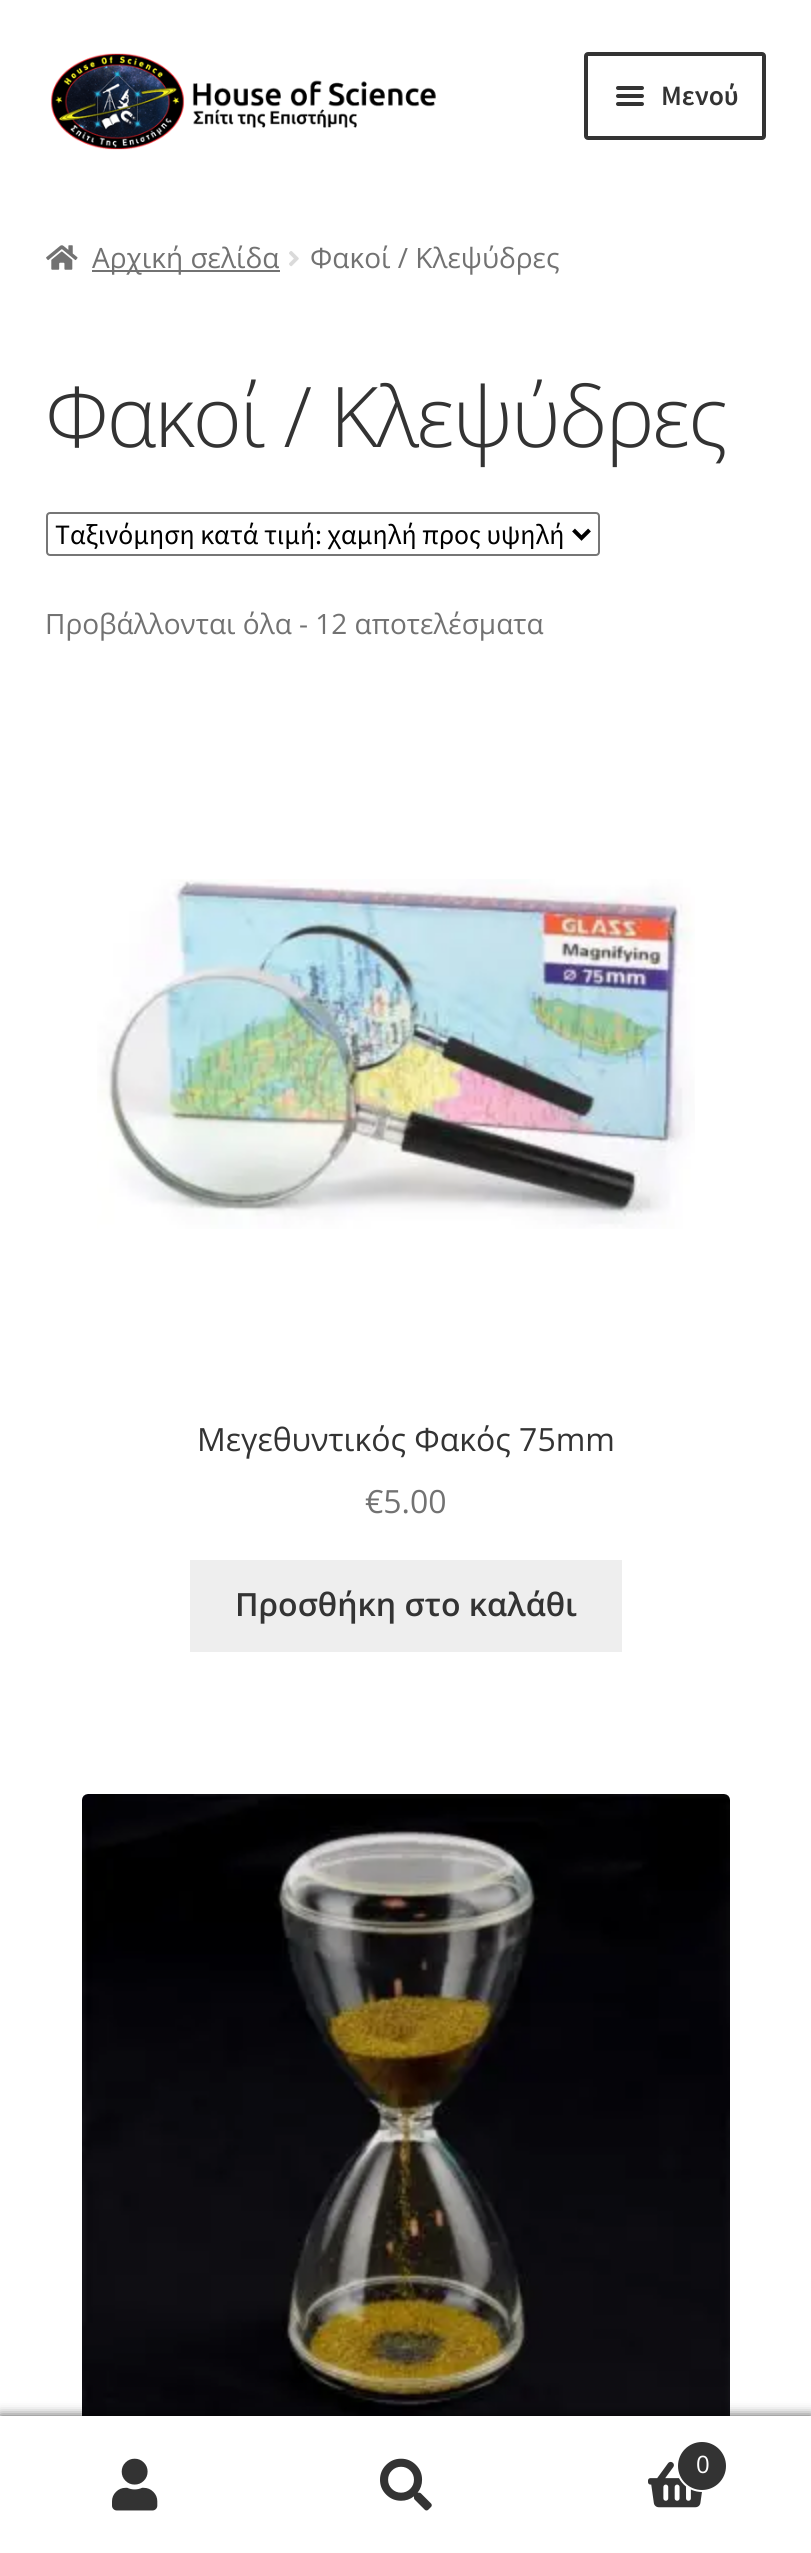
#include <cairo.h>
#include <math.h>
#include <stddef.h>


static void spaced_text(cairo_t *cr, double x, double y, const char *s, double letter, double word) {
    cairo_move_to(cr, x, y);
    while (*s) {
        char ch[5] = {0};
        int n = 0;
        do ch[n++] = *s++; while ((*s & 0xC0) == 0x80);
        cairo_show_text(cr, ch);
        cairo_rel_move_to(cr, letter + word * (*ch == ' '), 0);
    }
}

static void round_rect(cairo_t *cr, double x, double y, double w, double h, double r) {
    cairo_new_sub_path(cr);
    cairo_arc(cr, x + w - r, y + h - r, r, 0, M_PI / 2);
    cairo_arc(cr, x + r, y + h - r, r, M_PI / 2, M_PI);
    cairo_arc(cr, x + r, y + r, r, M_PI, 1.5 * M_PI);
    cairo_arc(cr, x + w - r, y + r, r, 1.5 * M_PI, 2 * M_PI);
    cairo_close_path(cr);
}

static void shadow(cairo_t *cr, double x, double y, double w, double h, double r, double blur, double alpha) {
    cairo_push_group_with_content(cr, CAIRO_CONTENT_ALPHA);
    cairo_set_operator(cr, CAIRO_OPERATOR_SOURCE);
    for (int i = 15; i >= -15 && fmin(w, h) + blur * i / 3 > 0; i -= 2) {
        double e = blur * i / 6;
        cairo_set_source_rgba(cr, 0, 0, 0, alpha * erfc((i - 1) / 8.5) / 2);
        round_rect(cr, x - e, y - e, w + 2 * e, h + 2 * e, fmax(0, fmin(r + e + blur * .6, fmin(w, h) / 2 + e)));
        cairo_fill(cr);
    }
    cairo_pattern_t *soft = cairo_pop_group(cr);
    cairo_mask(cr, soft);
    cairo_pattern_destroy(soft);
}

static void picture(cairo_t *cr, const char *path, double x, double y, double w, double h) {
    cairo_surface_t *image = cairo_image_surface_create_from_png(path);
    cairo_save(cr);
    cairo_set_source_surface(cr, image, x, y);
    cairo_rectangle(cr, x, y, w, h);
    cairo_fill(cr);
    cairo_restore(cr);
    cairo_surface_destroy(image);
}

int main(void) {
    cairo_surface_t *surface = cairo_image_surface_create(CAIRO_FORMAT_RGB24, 811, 2553);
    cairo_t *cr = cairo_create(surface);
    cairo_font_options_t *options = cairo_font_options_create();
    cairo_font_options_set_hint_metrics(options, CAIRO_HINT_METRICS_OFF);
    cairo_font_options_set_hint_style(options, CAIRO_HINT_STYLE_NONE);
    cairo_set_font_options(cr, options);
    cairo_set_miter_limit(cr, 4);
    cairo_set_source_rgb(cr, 1, 1, 1);
    cairo_paint(cr);
    picture(cr, "img1.png", 50, 53, 386, 97);
    round_rect(cr, 586, 54, 178, 84, 2);
    cairo_set_source_rgb(cr, 0.2, 0.2, 0.2);
    cairo_set_line_width(cr, 4);
    cairo_stroke(cr);
    round_rect(cr, 616, 86, 28, 4, 2);
    cairo_fill(cr);
    round_rect(cr, 616, 94, 28, 4, 2);
    cairo_fill(cr);
    cairo_select_font_face(cr, "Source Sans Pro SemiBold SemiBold", CAIRO_FONT_SLANT_NORMAL, CAIRO_FONT_WEIGHT_NORMAL);
    cairo_set_font_size(cr, 28);
    cairo_move_to(cr, 661, 105);
    cairo_show_text(cr, "Μενού");
    round_rect(cr, 616, 102, 28, 4, 2);
    cairo_fill(cr);
    picture(cr, "img2.png", 46, 245, 32, 25);
    cairo_set_source_rgb(cr, 0.447, 0.447, 0.447);
    cairo_rectangle(cr, 92, 270, 188, 2);
    cairo_fill(cr);
    cairo_select_font_face(cr, "Open Sans", CAIRO_FONT_SLANT_NORMAL, CAIRO_FONT_WEIGHT_NORMAL);
    cairo_move_to(cr, 92, 268);
    cairo_show_text(cr, "Αρχική σελίδα");
    picture(cr, "img3.png", 289, 251, 10, 16);
    cairo_move_to(cr, 310, 268);
    cairo_show_text(cr, "Φακοί / Κλεψύδρες");
    cairo_select_font_face(cr, "Open Sans Light", CAIRO_FONT_SLANT_NORMAL, CAIRO_FONT_WEIGHT_NORMAL);
    cairo_set_font_size(cr, 83.75);
    cairo_set_source_rgb(cr, 0.2, 0.2, 0.2);
    spaced_text(cr, 45, 447, "Φακοί / Κλεψύδρες", -2, 0);
    round_rect(cr, 47, 513, 552, 42, 3);
    cairo_set_source_rgb(cr, 0.463, 0.463, 0.463);
    cairo_set_line_width(cr, 2);
    cairo_stroke(cr);
    cairo_new_path(cr);
    cairo_move_to(cr, 573.5, 530);
    cairo_line_to(cr, 581.5, 538);
    cairo_line_to(cr, 589.5, 530);
    cairo_set_source_rgb(cr, 0, 0, 0);
    cairo_set_line_width(cr, 4);
    cairo_stroke(cr);
    cairo_select_font_face(cr, "Source Sans Pro", CAIRO_FONT_SLANT_NORMAL, CAIRO_FONT_WEIGHT_NORMAL);
    cairo_set_font_size(cr, 28);
    cairo_move_to(cr, 55, 544);
    cairo_show_text(cr, "Ταξινόμηση κατά τιμή: χαμηλή προς υψηλή");
    cairo_select_font_face(cr, "Open Sans", CAIRO_FONT_SLANT_NORMAL, CAIRO_FONT_WEIGHT_NORMAL);
    cairo_set_source_rgb(cr, 0.447, 0.447, 0.447);
    cairo_move_to(cr, 45, 634);
    cairo_show_text(cr, "Προβάλλονται όλα - 12 αποτελέσματα");
    picture(cr, "img4.png", 97, 879, 598, 350);
    cairo_set_font_size(cr, 32);
    cairo_set_source_rgb(cr, 0.2, 0.2, 0.2);
    cairo_move_to(cr, 197, 1451);
    cairo_show_text(cr, "Μεγεθυντικός Φακός 75mm");
    cairo_set_source_rgb(cr, 0.447, 0.447, 0.447);
    cairo_move_to(cr, 365, 1513);
    cairo_show_text(cr, "€5.00");
    cairo_set_source_rgb(cr, 0.933, 0.933, 0.933);
    cairo_rectangle(cr, 190, 1560, 432, 92);
    cairo_fill(cr);
    cairo_select_font_face(cr, "Open Sans SemiBold", CAIRO_FONT_SLANT_NORMAL, CAIRO_FONT_WEIGHT_NORMAL);
    cairo_set_source_rgb(cr, 0.2, 0.2, 0.2);
    cairo_move_to(cr, 235, 1616);
    cairo_show_text(cr, "Προσθήκη στο καλάθι");
    picture(cr, "img5.png", 82, 1794, 648, 622);
    cairo_set_source_rgb(cr, 0, 0, 0);
    shadow(cr, 0, 2416, 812, 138, 0, 6, 0.7);
    cairo_set_source_rgb(cr, 1, 1, 1);
    cairo_rectangle(cr, 0, 2416, 811, 2);
    cairo_fill(cr);
    cairo_rectangle(cr, 0, 2418, 811, 135);
    cairo_fill(cr);
    picture(cr, "img6.png", 112, 2458, 46, 53);
    picture(cr, "img7.png", 380, 2458, 52, 53);
    picture(cr, "img8.png", 648, 2461, 55, 47);
    cairo_set_source_rgb(cr, 0.2, 0.2, 0.2);
    cairo_arc(cr, 702, 2466, 25, 0, 2 * M_PI);
    cairo_fill_preserve(cr);
    cairo_set_source_rgb(cr, 1, 1, 1);
    cairo_set_line_width(cr, 2);
    cairo_stroke(cr);
    cairo_select_font_face(cr, "Open Sans", CAIRO_FONT_SLANT_NORMAL, CAIRO_FONT_WEIGHT_NORMAL);
    cairo_set_font_size(cr, 24);
    cairo_move_to(cr, 696, 2473);
    cairo_show_text(cr, "0");
    cairo_surface_write_to_png(surface, "page.png");
    cairo_font_options_destroy(options);
    cairo_destroy(cr);
    cairo_surface_destroy(surface);
    return 0;
}
